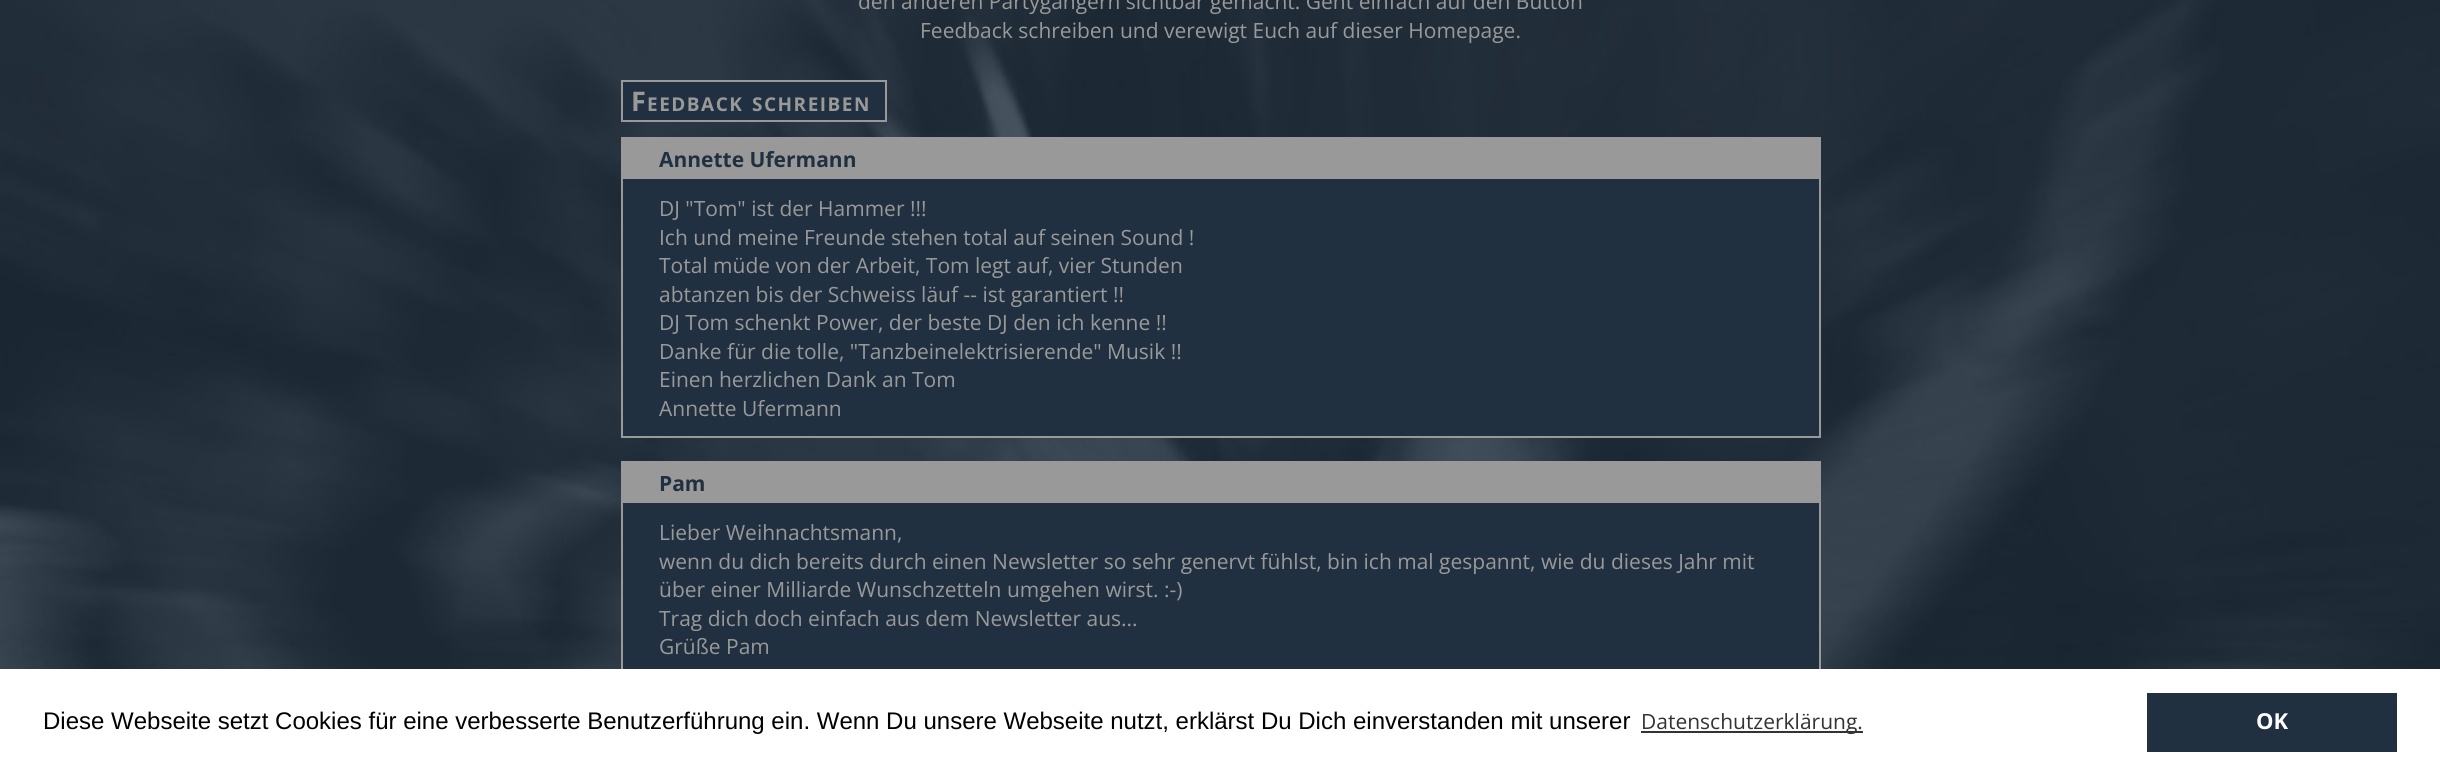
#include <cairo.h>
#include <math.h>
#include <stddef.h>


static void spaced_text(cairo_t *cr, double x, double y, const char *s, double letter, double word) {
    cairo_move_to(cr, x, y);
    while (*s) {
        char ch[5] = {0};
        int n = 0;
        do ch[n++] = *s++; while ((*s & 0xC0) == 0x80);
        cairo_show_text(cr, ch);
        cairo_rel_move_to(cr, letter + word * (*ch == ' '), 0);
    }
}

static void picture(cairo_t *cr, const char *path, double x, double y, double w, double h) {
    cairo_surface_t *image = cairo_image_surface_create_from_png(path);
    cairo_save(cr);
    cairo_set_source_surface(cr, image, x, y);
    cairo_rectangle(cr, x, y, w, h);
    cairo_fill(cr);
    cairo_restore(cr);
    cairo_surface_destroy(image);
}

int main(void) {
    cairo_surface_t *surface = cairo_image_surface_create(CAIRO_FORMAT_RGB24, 2440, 775);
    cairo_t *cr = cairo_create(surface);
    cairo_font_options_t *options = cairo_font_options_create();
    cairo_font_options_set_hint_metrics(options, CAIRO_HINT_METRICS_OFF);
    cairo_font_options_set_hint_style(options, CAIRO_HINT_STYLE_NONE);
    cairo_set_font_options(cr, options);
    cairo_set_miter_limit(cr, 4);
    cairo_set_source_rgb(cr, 1, 1, 1);
    cairo_paint(cr);
    picture(cr, "img1.png", 0, 0, 2440, 669);
    cairo_select_font_face(cr, "Open Sans", CAIRO_FONT_SLANT_NORMAL, CAIRO_FONT_WEIGHT_NORMAL);
    cairo_set_font_size(cr, 21);
    cairo_set_source_rgb(cr, 0.6, 0.6, 0.6);
    cairo_move_to(cr, 858, 9);
    cairo_show_text(cr, "den anderen Partygängern sichtbar gemacht. Geht einfach auf den Button");
    cairo_move_to(cr, 920, 38);
    cairo_show_text(cr, "Feedback schreiben und verewigt Euch auf dieser Homepage.");
    cairo_set_source_rgb(cr, 0.125, 0.188, 0.251);
    cairo_rectangle(cr, 622, 81, 264, 40);
    cairo_fill_preserve(cr);
    cairo_set_source_rgb(cr, 0.6, 0.6, 0.6);
    cairo_stroke(cr);
    cairo_select_font_face(cr, "Open Sans", CAIRO_FONT_SLANT_NORMAL, CAIRO_FONT_WEIGHT_BOLD);
    cairo_set_font_size(cr, 27);
    spaced_text(cr, 631, 111, "F", 1.5, 0);
    cairo_set_font_size(cr, 19);
    spaced_text(cr, 647, 111, "EEDBACK", 1.5, 0);
    spaced_text(cr, 752, 111, "SCHREIBEN", 1.5, 0);
    cairo_set_source_rgb(cr, 0.125, 0.188, 0.251);
    cairo_rectangle(cr, 623, 179, 1196, 257);
    cairo_fill(cr);
    cairo_rectangle(cr, 622, 138, 1198, 299);
    cairo_set_source_rgb(cr, 0.6, 0.6, 0.6);
    cairo_stroke(cr);
    cairo_rectangle(cr, 623, 139, 1196, 40);
    cairo_fill(cr);
    cairo_set_font_size(cr, 21);
    cairo_set_source_rgb(cr, 0.125, 0.188, 0.251);
    cairo_move_to(cr, 659, 167);
    cairo_show_text(cr, "Annette Ufermann");
    cairo_select_font_face(cr, "Open Sans", CAIRO_FONT_SLANT_NORMAL, CAIRO_FONT_WEIGHT_NORMAL);
    cairo_set_source_rgb(cr, 0.6, 0.6, 0.6);
    cairo_move_to(cr, 659, 216);
    cairo_show_text(cr, "DJ \"Tom\" ist der Hammer !!!");
    cairo_move_to(cr, 659, 245);
    cairo_show_text(cr, "Ich und meine Freunde stehen total auf seinen Sound !");
    cairo_move_to(cr, 659, 273);
    cairo_show_text(cr, "Total müde von der Arbeit, Tom legt auf, vier Stunden");
    cairo_move_to(cr, 659, 302);
    cairo_show_text(cr, "abtanzen bis der Schweiss läuf -- ist garantiert !!");
    cairo_move_to(cr, 659, 330);
    cairo_show_text(cr, "DJ Tom schenkt Power, der beste DJ den ich kenne !!");
    cairo_move_to(cr, 659, 359);
    cairo_show_text(cr, "Danke für die tolle, \"Tanzbeinelektrisierende\" Musik !!");
    cairo_move_to(cr, 659, 387);
    cairo_show_text(cr, "Einen herzlichen Dank an Tom");
    cairo_move_to(cr, 659, 416);
    cairo_show_text(cr, "Annette Ufermann");
    cairo_set_source_rgb(cr, 0.125, 0.188, 0.251);
    cairo_rectangle(cr, 623, 503, 1196, 166);
    cairo_fill(cr);
    cairo_rectangle(cr, 622, 462, 1198, 214);
    cairo_set_source_rgb(cr, 0.6, 0.6, 0.6);
    cairo_stroke(cr);
    cairo_rectangle(cr, 623, 463, 1196, 40);
    cairo_fill(cr);
    cairo_select_font_face(cr, "Open Sans", CAIRO_FONT_SLANT_NORMAL, CAIRO_FONT_WEIGHT_BOLD);
    cairo_set_source_rgb(cr, 0.125, 0.188, 0.251);
    cairo_move_to(cr, 659, 491);
    cairo_show_text(cr, "Pam");
    cairo_select_font_face(cr, "Open Sans", CAIRO_FONT_SLANT_NORMAL, CAIRO_FONT_WEIGHT_NORMAL);
    cairo_set_source_rgb(cr, 0.6, 0.6, 0.6);
    cairo_move_to(cr, 659, 540);
    cairo_show_text(cr, "Lieber Weihnachtsmann,");
    cairo_move_to(cr, 659, 569);
    cairo_show_text(cr, "wenn du dich bereits durch einen Newsletter so sehr genervt fühlst, bin ich mal gespannt, wie du dieses Jahr mit");
    cairo_move_to(cr, 659, 597);
    cairo_show_text(cr, "über einer Milliarde Wunschzetteln umgehen wirst. :-)");
    cairo_move_to(cr, 659, 626);
    cairo_show_text(cr, "Trag dich doch einfach aus dem Newsletter aus...");
    cairo_move_to(cr, 659, 654);
    cairo_show_text(cr, "Grüße Pam");
    cairo_set_source_rgb(cr, 1, 1, 1);
    cairo_rectangle(cr, 621, 669, 1200, 8);
    cairo_fill(cr);
    cairo_select_font_face(cr, "Liberation Sans", CAIRO_FONT_SLANT_NORMAL, CAIRO_FONT_WEIGHT_NORMAL);
    cairo_set_font_size(cr, 24);
    cairo_set_source_rgb(cr, 0, 0, 0);
    cairo_move_to(cr, 43, 729);
    cairo_show_text(cr, "Diese Webseite setzt Cookies für eine verbesserte Benutzerführung ein. Wenn Du unsere Webseite nutzt, erklärst Du Dich einverstanden mit unserer");
    cairo_set_source_rgb(cr, 0.2, 0.2, 0.2);
    cairo_rectangle(cr, 1641, 731, 222, 2);
    cairo_fill(cr);
    cairo_select_font_face(cr, "Open Sans", CAIRO_FONT_SLANT_NORMAL, CAIRO_FONT_WEIGHT_NORMAL);
    cairo_set_font_size(cr, 21);
    cairo_move_to(cr, 1641, 729);
    cairo_show_text(cr, "Datenschutzerklärung.");
    cairo_set_source_rgb(cr, 0.125, 0.188, 0.251);
    cairo_rectangle(cr, 2147, 693, 250, 59);
    cairo_fill(cr);
    cairo_select_font_face(cr, "Open Sans", CAIRO_FONT_SLANT_NORMAL, CAIRO_FONT_WEIGHT_BOLD);
    cairo_set_font_size(cr, 22);
    cairo_set_source_rgb(cr, 1, 1, 1);
    cairo_move_to(cr, 2256, 729);
    cairo_show_text(cr, "OK");
    cairo_surface_write_to_png(surface, "page.png");
    cairo_font_options_destroy(options);
    cairo_destroy(cr);
    cairo_surface_destroy(surface);
    return 0;
}
